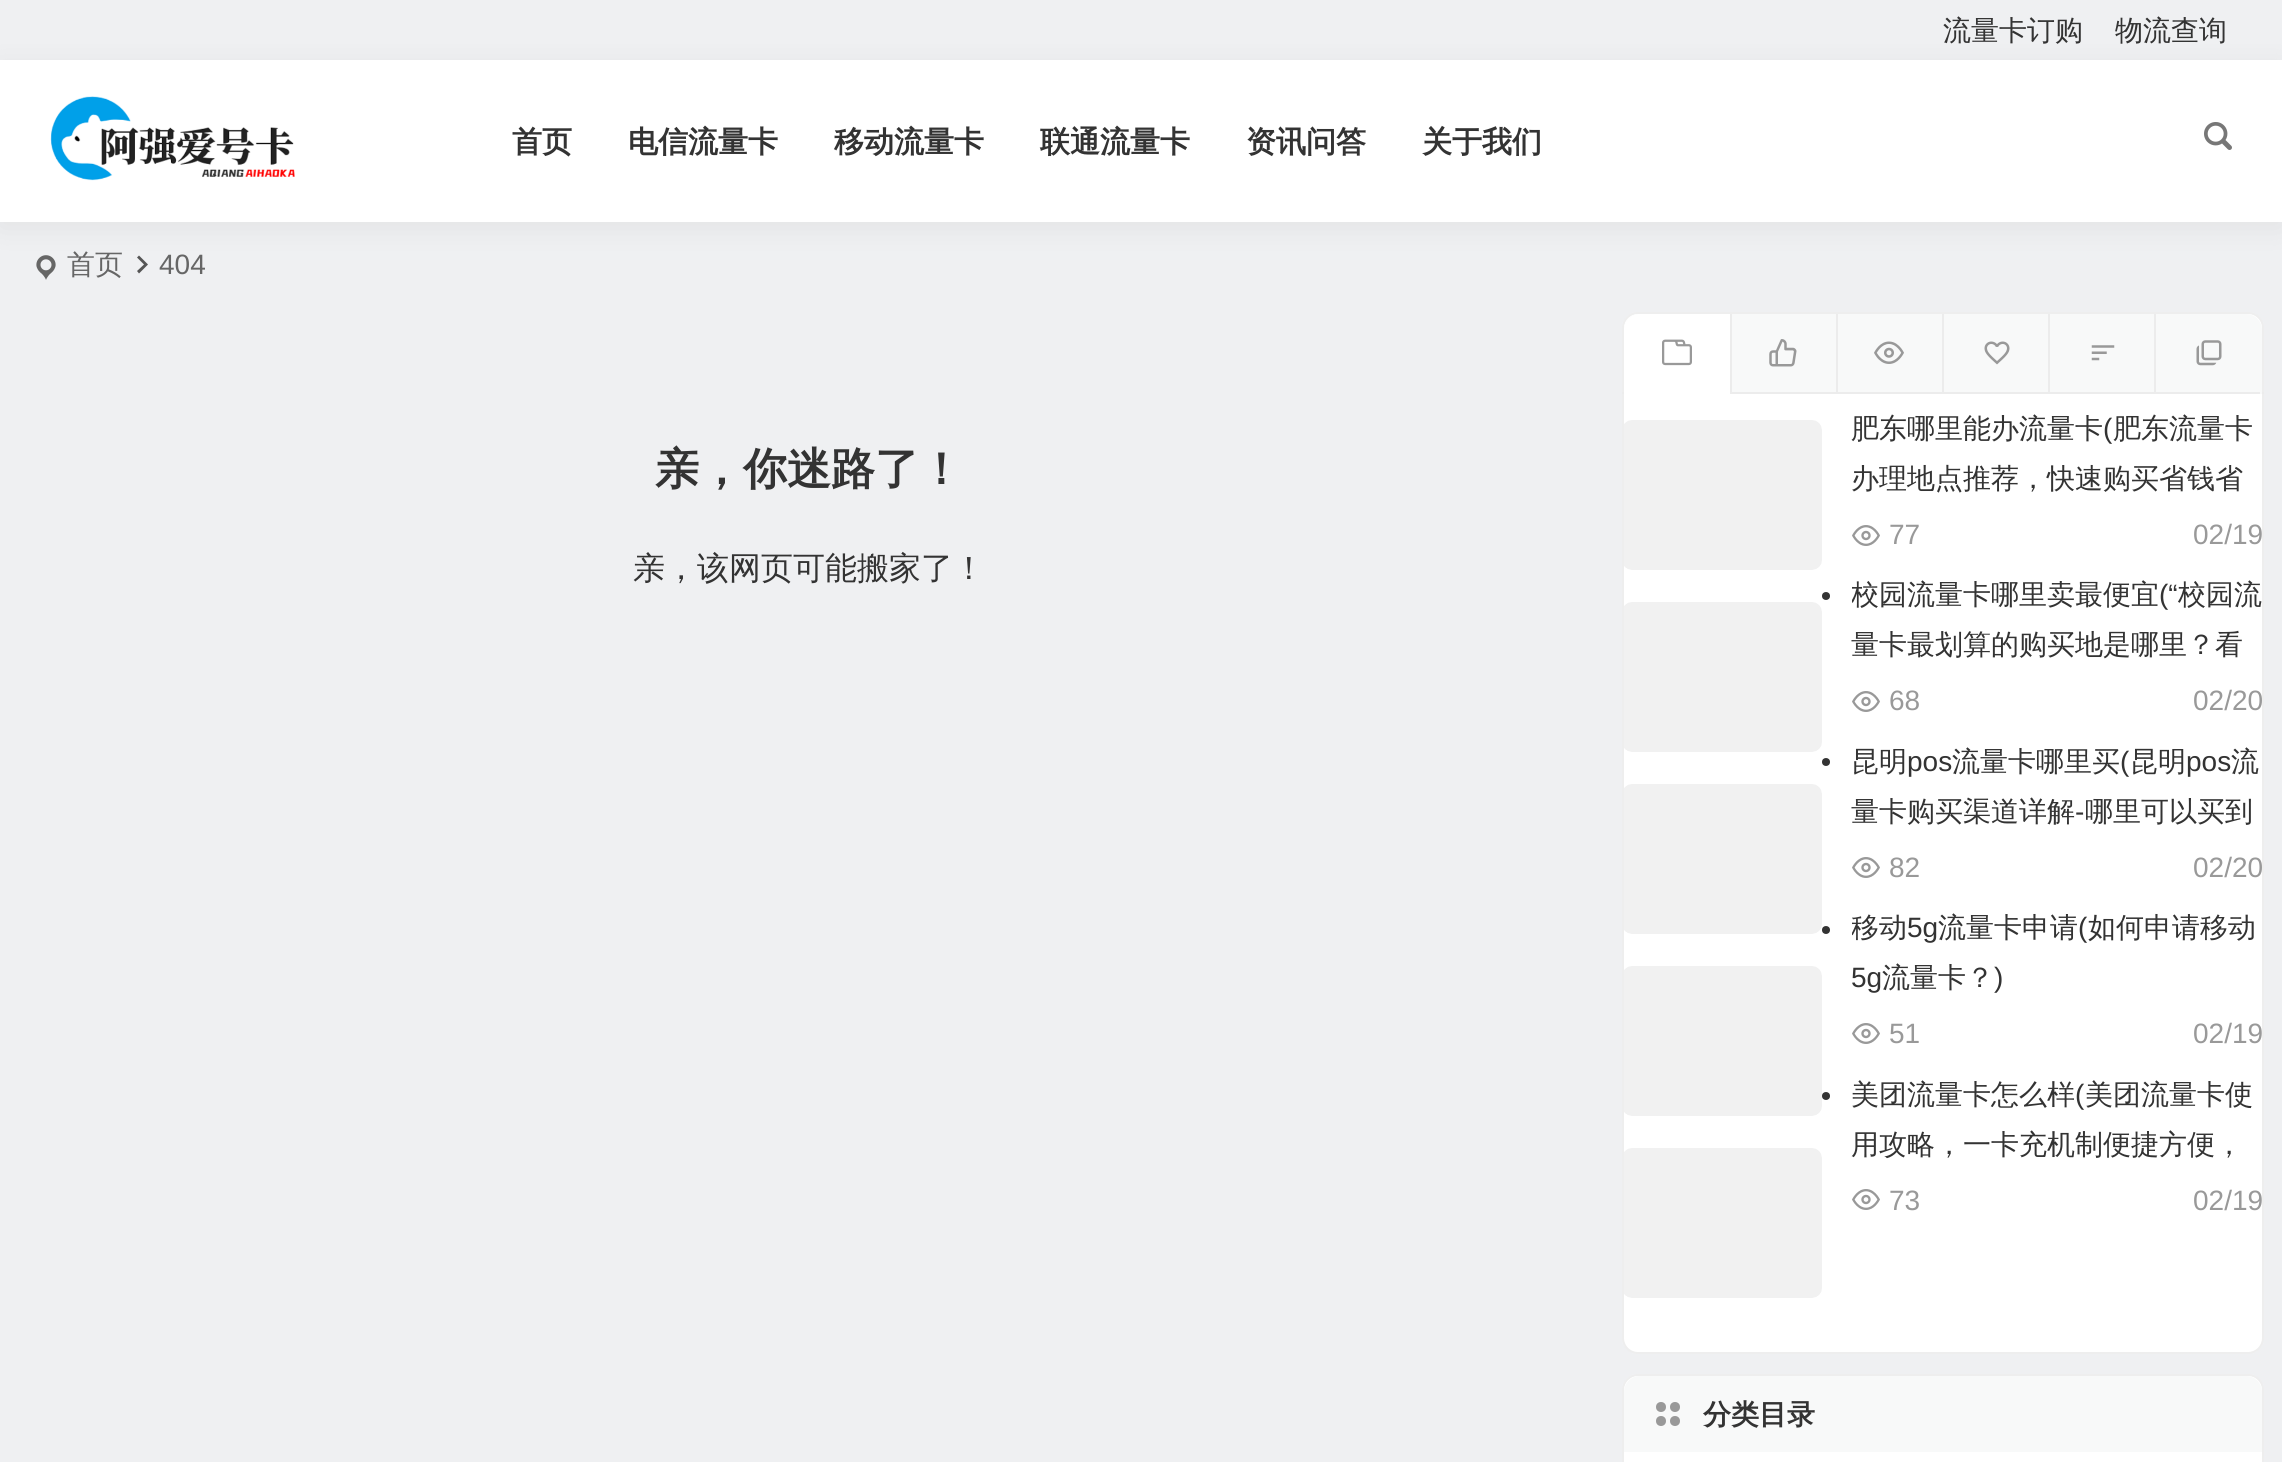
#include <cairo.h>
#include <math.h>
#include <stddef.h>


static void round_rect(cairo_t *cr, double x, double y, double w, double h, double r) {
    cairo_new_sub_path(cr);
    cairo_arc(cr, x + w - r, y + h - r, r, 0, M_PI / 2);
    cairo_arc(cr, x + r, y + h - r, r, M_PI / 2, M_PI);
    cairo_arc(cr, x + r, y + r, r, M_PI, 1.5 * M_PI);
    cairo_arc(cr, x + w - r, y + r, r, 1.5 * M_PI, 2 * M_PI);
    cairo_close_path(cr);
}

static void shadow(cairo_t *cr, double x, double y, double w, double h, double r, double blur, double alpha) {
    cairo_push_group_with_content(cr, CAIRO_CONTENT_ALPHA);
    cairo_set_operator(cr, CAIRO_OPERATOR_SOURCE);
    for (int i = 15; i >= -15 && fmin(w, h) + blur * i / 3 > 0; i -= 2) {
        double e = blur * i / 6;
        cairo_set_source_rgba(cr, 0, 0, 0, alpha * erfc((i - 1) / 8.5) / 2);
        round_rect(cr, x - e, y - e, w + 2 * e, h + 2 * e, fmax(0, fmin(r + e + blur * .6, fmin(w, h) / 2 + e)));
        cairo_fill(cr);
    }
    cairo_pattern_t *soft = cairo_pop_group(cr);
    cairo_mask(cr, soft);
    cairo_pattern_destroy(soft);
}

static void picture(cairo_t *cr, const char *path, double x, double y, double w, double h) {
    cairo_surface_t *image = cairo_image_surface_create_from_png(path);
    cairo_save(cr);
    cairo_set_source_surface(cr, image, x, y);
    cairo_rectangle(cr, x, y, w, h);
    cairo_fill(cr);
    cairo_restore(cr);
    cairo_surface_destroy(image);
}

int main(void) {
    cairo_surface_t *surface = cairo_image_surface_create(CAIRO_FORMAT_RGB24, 2282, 1462);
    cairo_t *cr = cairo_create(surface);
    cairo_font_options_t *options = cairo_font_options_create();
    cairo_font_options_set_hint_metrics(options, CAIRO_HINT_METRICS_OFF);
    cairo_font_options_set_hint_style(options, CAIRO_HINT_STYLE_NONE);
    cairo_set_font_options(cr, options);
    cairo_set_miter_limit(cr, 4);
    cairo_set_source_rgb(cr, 0.937, 0.941, 0.949);
    cairo_paint(cr);
    picture(cr, "img3.png", 36, 255, 20, 25);
    cairo_set_source_rgb(cr, 0.333, 0.333, 0.333);
    cairo_new_path(cr);
    cairo_move_to(cr, 137, 271);
    cairo_line_to(cr, 144, 264.5);
    cairo_line_to(cr, 137, 257.5);
    cairo_line_to(cr, 139, 255.5);
    cairo_line_to(cr, 148, 264.5);
    cairo_line_to(cr, 139, 273.5);
    cairo_close_path(cr);
    cairo_fill(cr);
    cairo_set_source_rgb(cr, 0, 0, 0);
    shadow(cr, 0, 66, 2282, 162, 0, 15, 0.06);
    cairo_select_font_face(cr, "WenQuanYi Zen Hei Medium", CAIRO_FONT_SLANT_NORMAL, CAIRO_FONT_WEIGHT_NORMAL);
    cairo_set_font_size(cr, 28);
    cairo_set_source_rgb(cr, 0.2, 0.2, 0.2);
    cairo_move_to(cr, 1943, 40);
    cairo_show_text(cr, "流量卡订购");
    cairo_move_to(cr, 2115, 40);
    cairo_show_text(cr, "物流查询");
    cairo_set_source_rgb(cr, 1, 1, 1);
    cairo_rectangle(cr, 0, 60, 2282, 162);
    cairo_fill(cr);
    picture(cr, "img1.png", 50, 96, 245, 85);
    cairo_select_font_face(cr, "WenQuanYi Zen Hei", CAIRO_FONT_SLANT_NORMAL, CAIRO_FONT_WEIGHT_BOLD);
    cairo_set_font_size(cr, 30);
    cairo_set_source_rgb(cr, 0.2, 0.2, 0.2);
    cairo_move_to(cr, 512, 152);
    cairo_show_text(cr, "首页");
    cairo_move_to(cr, 628, 152);
    cairo_show_text(cr, "电信流量卡");
    cairo_move_to(cr, 834, 152);
    cairo_show_text(cr, "移动流量卡");
    cairo_move_to(cr, 1040, 152);
    cairo_show_text(cr, "联通流量卡");
    cairo_move_to(cr, 1246, 152);
    cairo_show_text(cr, "资讯问答");
    cairo_move_to(cr, 1422, 152);
    cairo_show_text(cr, "关于我们");
    picture(cr, "img2.png", 2204, 122, 28, 28);
    cairo_select_font_face(cr, "WenQuanYi Zen Hei Medium", CAIRO_FONT_SLANT_NORMAL, CAIRO_FONT_WEIGHT_NORMAL);
    cairo_set_font_size(cr, 28);
    cairo_set_source_rgb(cr, 0.4, 0.4, 0.4);
    cairo_move_to(cr, 67, 274);
    cairo_show_text(cr, "首页");
    cairo_select_font_face(cr, "Liberation Sans", CAIRO_FONT_SLANT_NORMAL, CAIRO_FONT_WEIGHT_NORMAL);
    cairo_move_to(cr, 159, 274);
    cairo_show_text(cr, "404");
    cairo_select_font_face(cr, "WenQuanYi Zen Hei", CAIRO_FONT_SLANT_NORMAL, CAIRO_FONT_WEIGHT_BOLD);
    cairo_set_font_size(cr, 44);
    cairo_set_source_rgb(cr, 0.2, 0.2, 0.2);
    cairo_move_to(cr, 655, 484);
    cairo_show_text(cr, "亲，你迷路了！");
    cairo_select_font_face(cr, "WenQuanYi Zen Hei Medium", CAIRO_FONT_SLANT_NORMAL, CAIRO_FONT_WEIGHT_NORMAL);
    cairo_set_font_size(cr, 32);
    cairo_move_to(cr, 633, 579);
    cairo_show_text(cr, "亲，该网页可能搬家了！");
    cairo_set_source_rgb(cr, 1, 1, 1);
    round_rect(cr, 1622, 312, 642, 1042, 16);
    cairo_fill(cr);
    round_rect(cr, 1623, 313, 640, 1040, 15);
    cairo_set_source_rgba(cr, 0, 0, 0, 0.07);
    cairo_stroke(cr);
    cairo_set_source_rgb(cr, 0.925, 0.925, 0.925);
    cairo_rectangle(cr, 1622, 392, 642, 2);
    cairo_fill(cr);
    cairo_set_source_rgb(cr, 0.969, 0.973, 0.976);
    cairo_new_path(cr);
    cairo_move_to(cr, 1640, 314);
    cairo_line_to(cr, 2246, 314);
    cairo_curve_to(cr, 2255, 314, 2262, 321, 2262, 330);
    cairo_line_to(cr, 2262, 394);
    cairo_line_to(cr, 1624, 394);
    cairo_line_to(cr, 1624, 330);
    cairo_curve_to(cr, 1624, 321, 1631, 314, 1640, 314);
    cairo_close_path(cr);
    cairo_fill(cr);
    cairo_set_source_rgb(cr, 1, 1, 1);
    cairo_new_path(cr);
    cairo_move_to(cr, 1640, 314);
    cairo_line_to(cr, 1730, 314);
    cairo_line_to(cr, 1730, 394);
    cairo_line_to(cr, 1624, 394);
    cairo_line_to(cr, 1624, 330);
    cairo_curve_to(cr, 1624, 321, 1631, 314, 1640, 314);
    cairo_close_path(cr);
    cairo_fill(cr);
    picture(cr, "img4.png", 1662, 339, 30, 27);
    cairo_set_source_rgb(cr, 0.925, 0.925, 0.925);
    cairo_rectangle(cr, 1730, 392, 530, 2);
    cairo_fill(cr);
    cairo_rectangle(cr, 1730, 314, 2, 80);
    cairo_fill(cr);
    picture(cr, "img5.png", 1769, 339, 28, 28);
    cairo_rectangle(cr, 1836, 314, 2, 80);
    cairo_fill(cr);
    picture(cr, "img6.png", 1874, 341, 30, 23);
    cairo_rectangle(cr, 1942, 314, 2, 80);
    cairo_fill(cr);
    picture(cr, "img7.png", 1984, 341, 26, 24);
    cairo_rectangle(cr, 2048, 314, 2, 80);
    cairo_fill(cr);
    picture(cr, "img8.png", 2091, 345, 24, 16);
    cairo_rectangle(cr, 2154, 314, 2, 80);
    cairo_fill(cr);
    picture(cr, "img9.png", 2196, 340, 26, 26);
    picture(cr, "img10.png", 1624, 420, 198, 150);
    cairo_set_font_size(cr, 28);
    cairo_set_source_rgb(cr, 0.2, 0.2, 0.2);
    cairo_move_to(cr, 1851, 438);
    cairo_show_text(cr, "肥东哪里能办流量卡");
    cairo_select_font_face(cr, "Liberation Sans", CAIRO_FONT_SLANT_NORMAL, CAIRO_FONT_WEIGHT_NORMAL);
    cairo_move_to(cr, 2103, 438);
    cairo_show_text(cr, "(");
    cairo_select_font_face(cr, "WenQuanYi Zen Hei Medium", CAIRO_FONT_SLANT_NORMAL, CAIRO_FONT_WEIGHT_NORMAL);
    cairo_move_to(cr, 2113, 438);
    cairo_show_text(cr, "肥东流量卡");
    cairo_move_to(cr, 1851, 488);
    cairo_show_text(cr, "办理地点推荐，快速购买省钱省");
    picture(cr, "img11.png", 1852, 525, 28, 21);
    cairo_select_font_face(cr, "Liberation Sans", CAIRO_FONT_SLANT_NORMAL, CAIRO_FONT_WEIGHT_NORMAL);
    cairo_set_source_rgb(cr, 0.6, 0.6, 0.6);
    cairo_move_to(cr, 1889, 544);
    cairo_show_text(cr, "77");
    cairo_move_to(cr, 2193, 544);
    cairo_show_text(cr, "02/19");
    cairo_set_source_rgb(cr, 0.2, 0.2, 0.2);
    cairo_new_path(cr);
    cairo_arc(cr, 1826, 596, 4, 0, 2 * M_PI);
    cairo_fill(cr);
    cairo_save(cr);
    cairo_rectangle(cr, 1852, 570, 412, 106);
    cairo_clip(cr);
    cairo_select_font_face(cr, "WenQuanYi Zen Hei Medium", CAIRO_FONT_SLANT_NORMAL, CAIRO_FONT_WEIGHT_NORMAL);
    cairo_move_to(cr, 1851, 604);
    cairo_show_text(cr, "校园流量卡哪里卖最便宜");
    cairo_restore(cr);
    cairo_move_to(cr, 2159, 604);
    cairo_show_text(cr, "(“");
    cairo_select_font_face(cr, "WenQuanYi Zen Hei Medium", CAIRO_FONT_SLANT_NORMAL, CAIRO_FONT_WEIGHT_NORMAL);
    cairo_move_to(cr, 2178, 604);
    cairo_show_text(cr, "校园流");
    cairo_move_to(cr, 1851, 654);
    cairo_show_text(cr, "量卡最划算的购买地是哪里？看");
    picture(cr, "img10.png", 1624, 602, 198, 150);
    picture(cr, "img11.png", 1852, 691, 28, 21);
    cairo_select_font_face(cr, "Liberation Sans", CAIRO_FONT_SLANT_NORMAL, CAIRO_FONT_WEIGHT_NORMAL);
    cairo_set_source_rgb(cr, 0.6, 0.6, 0.6);
    cairo_move_to(cr, 1889, 710);
    cairo_show_text(cr, "68");
    cairo_move_to(cr, 2193, 710);
    cairo_show_text(cr, "02/20");
    cairo_set_source_rgb(cr, 0.2, 0.2, 0.2);
    cairo_new_path(cr);
    cairo_arc(cr, 1826, 762, 4, 0, 2 * M_PI);
    cairo_fill(cr);
    cairo_select_font_face(cr, "WenQuanYi Zen Hei Medium", CAIRO_FONT_SLANT_NORMAL, CAIRO_FONT_WEIGHT_NORMAL);
    cairo_move_to(cr, 1851, 771);
    cairo_show_text(cr, "昆明");
    cairo_select_font_face(cr, "Liberation Sans", CAIRO_FONT_SLANT_NORMAL, CAIRO_FONT_WEIGHT_NORMAL);
    cairo_move_to(cr, 1907, 771);
    cairo_show_text(cr, "pos");
    cairo_select_font_face(cr, "WenQuanYi Zen Hei Medium", CAIRO_FONT_SLANT_NORMAL, CAIRO_FONT_WEIGHT_NORMAL);
    cairo_move_to(cr, 1952, 771);
    cairo_show_text(cr, "流量卡哪里买");
    cairo_select_font_face(cr, "Liberation Sans", CAIRO_FONT_SLANT_NORMAL, CAIRO_FONT_WEIGHT_NORMAL);
    cairo_move_to(cr, 2120, 771);
    cairo_show_text(cr, "(");
    cairo_select_font_face(cr, "WenQuanYi Zen Hei Medium", CAIRO_FONT_SLANT_NORMAL, CAIRO_FONT_WEIGHT_NORMAL);
    cairo_move_to(cr, 2130, 771);
    cairo_show_text(cr, "昆明");
    cairo_select_font_face(cr, "Liberation Sans", CAIRO_FONT_SLANT_NORMAL, CAIRO_FONT_WEIGHT_NORMAL);
    cairo_move_to(cr, 2186, 771);
    cairo_show_text(cr, "pos");
    cairo_select_font_face(cr, "WenQuanYi Zen Hei Medium", CAIRO_FONT_SLANT_NORMAL, CAIRO_FONT_WEIGHT_NORMAL);
    cairo_move_to(cr, 2231, 771);
    cairo_show_text(cr, "流");
    cairo_move_to(cr, 1851, 821);
    cairo_show_text(cr, "量卡购买渠道详解");
    cairo_select_font_face(cr, "Liberation Sans", CAIRO_FONT_SLANT_NORMAL, CAIRO_FONT_WEIGHT_NORMAL);
    cairo_move_to(cr, 2075, 821);
    cairo_show_text(cr, "-");
    cairo_select_font_face(cr, "WenQuanYi Zen Hei Medium", CAIRO_FONT_SLANT_NORMAL, CAIRO_FONT_WEIGHT_NORMAL);
    cairo_move_to(cr, 2085, 821);
    cairo_show_text(cr, "哪里可以买到");
    picture(cr, "img10.png", 1624, 784, 198, 150);
    picture(cr, "img11.png", 1852, 857, 28, 21);
    cairo_select_font_face(cr, "Liberation Sans", CAIRO_FONT_SLANT_NORMAL, CAIRO_FONT_WEIGHT_NORMAL);
    cairo_set_source_rgb(cr, 0.6, 0.6, 0.6);
    cairo_move_to(cr, 1889, 877);
    cairo_show_text(cr, "82");
    cairo_move_to(cr, 2193, 877);
    cairo_show_text(cr, "02/20");
    cairo_set_source_rgb(cr, 0.2, 0.2, 0.2);
    cairo_new_path(cr);
    cairo_arc(cr, 1826, 930, 4, 0, 2 * M_PI);
    cairo_fill(cr);
    cairo_save(cr);
    cairo_rectangle(cr, 1852, 904, 412, 106);
    cairo_clip(cr);
    cairo_select_font_face(cr, "WenQuanYi Zen Hei Medium", CAIRO_FONT_SLANT_NORMAL, CAIRO_FONT_WEIGHT_NORMAL);
    cairo_move_to(cr, 1851, 937);
    cairo_show_text(cr, "移动");
    cairo_restore(cr);
    cairo_move_to(cr, 1907, 937);
    cairo_show_text(cr, "5g");
    cairo_select_font_face(cr, "WenQuanYi Zen Hei Medium", CAIRO_FONT_SLANT_NORMAL, CAIRO_FONT_WEIGHT_NORMAL);
    cairo_move_to(cr, 1938, 937);
    cairo_show_text(cr, "流量卡申请");
    cairo_select_font_face(cr, "Liberation Sans", CAIRO_FONT_SLANT_NORMAL, CAIRO_FONT_WEIGHT_NORMAL);
    cairo_move_to(cr, 2078, 937);
    cairo_show_text(cr, "(");
    cairo_select_font_face(cr, "WenQuanYi Zen Hei Medium", CAIRO_FONT_SLANT_NORMAL, CAIRO_FONT_WEIGHT_NORMAL);
    cairo_move_to(cr, 2088, 937);
    cairo_show_text(cr, "如何申请移动");
    cairo_select_font_face(cr, "Liberation Sans", CAIRO_FONT_SLANT_NORMAL, CAIRO_FONT_WEIGHT_NORMAL);
    cairo_move_to(cr, 1851, 987);
    cairo_show_text(cr, "5g");
    cairo_select_font_face(cr, "WenQuanYi Zen Hei Medium", CAIRO_FONT_SLANT_NORMAL, CAIRO_FONT_WEIGHT_NORMAL);
    cairo_move_to(cr, 1882, 987);
    cairo_show_text(cr, "流量卡？");
    cairo_select_font_face(cr, "Liberation Sans", CAIRO_FONT_SLANT_NORMAL, CAIRO_FONT_WEIGHT_NORMAL);
    cairo_move_to(cr, 1994, 987);
    cairo_show_text(cr, ")");
    picture(cr, "img10.png", 1624, 966, 198, 150);
    picture(cr, "img11.png", 1852, 1023, 28, 21);
    cairo_set_source_rgb(cr, 0.6, 0.6, 0.6);
    cairo_move_to(cr, 1889, 1043);
    cairo_show_text(cr, "51");
    cairo_move_to(cr, 2193, 1043);
    cairo_show_text(cr, "02/19");
    cairo_set_source_rgb(cr, 0.2, 0.2, 0.2);
    cairo_new_path(cr);
    cairo_arc(cr, 1826, 1096, 4, 0, 2 * M_PI);
    cairo_fill(cr);
    cairo_select_font_face(cr, "WenQuanYi Zen Hei Medium", CAIRO_FONT_SLANT_NORMAL, CAIRO_FONT_WEIGHT_NORMAL);
    cairo_move_to(cr, 1851, 1104);
    cairo_show_text(cr, "美团流量卡怎么样");
    cairo_select_font_face(cr, "Liberation Sans", CAIRO_FONT_SLANT_NORMAL, CAIRO_FONT_WEIGHT_NORMAL);
    cairo_move_to(cr, 2075, 1104);
    cairo_show_text(cr, "(");
    cairo_select_font_face(cr, "WenQuanYi Zen Hei Medium", CAIRO_FONT_SLANT_NORMAL, CAIRO_FONT_WEIGHT_NORMAL);
    cairo_move_to(cr, 2085, 1104);
    cairo_show_text(cr, "美团流量卡使");
    cairo_move_to(cr, 1851, 1154);
    cairo_show_text(cr, "用攻略，一卡充机制便捷方便，");
    picture(cr, "img10.png", 1624, 1148, 198, 150);
    picture(cr, "img11.png", 1852, 1189, 28, 21);
    cairo_select_font_face(cr, "Liberation Sans", CAIRO_FONT_SLANT_NORMAL, CAIRO_FONT_WEIGHT_NORMAL);
    cairo_set_source_rgb(cr, 0.6, 0.6, 0.6);
    cairo_move_to(cr, 1889, 1210);
    cairo_show_text(cr, "73");
    cairo_move_to(cr, 2193, 1210);
    cairo_show_text(cr, "02/19");
    cairo_set_source_rgb(cr, 1, 1, 1);
    round_rect(cr, 1622, 1374, 642, 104, 16);
    cairo_fill(cr);
    round_rect(cr, 1623, 1375, 640, 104, 15);
    cairo_set_source_rgba(cr, 0, 0, 0, 0.07);
    cairo_stroke(cr);
    cairo_set_source_rgb(cr, 0.969, 0.973, 0.976);
    cairo_new_path(cr);
    cairo_move_to(cr, 1640, 1376);
    cairo_line_to(cr, 2246, 1376);
    cairo_curve_to(cr, 2255, 1376, 2262, 1383, 2262, 1392);
    cairo_line_to(cr, 2262, 1452);
    cairo_line_to(cr, 1624, 1452);
    cairo_line_to(cr, 1624, 1392);
    cairo_curve_to(cr, 1624, 1383, 1631, 1376, 1640, 1376);
    cairo_close_path(cr);
    cairo_fill(cr);
    cairo_set_source_rgb(cr, 0.6, 0.6, 0.6);
    cairo_arc(cr, 1661, 1407, 5, 0, 2 * M_PI);
    cairo_fill(cr);
    cairo_arc(cr, 1675, 1407, 5, 0, 2 * M_PI);
    cairo_fill(cr);
    cairo_arc(cr, 1661, 1421, 5, 0, 2 * M_PI);
    cairo_fill(cr);
    cairo_arc(cr, 1675, 1421, 5, 0, 2 * M_PI);
    cairo_fill(cr);
    cairo_select_font_face(cr, "WenQuanYi Zen Hei", CAIRO_FONT_SLANT_NORMAL, CAIRO_FONT_WEIGHT_BOLD);
    cairo_set_source_rgb(cr, 0.2, 0.2, 0.2);
    cairo_move_to(cr, 1703, 1424);
    cairo_show_text(cr, "分类目录");
    cairo_surface_write_to_png(surface, "page.png");
    cairo_font_options_destroy(options);
    cairo_destroy(cr);
    cairo_surface_destroy(surface);
    return 0;
}
